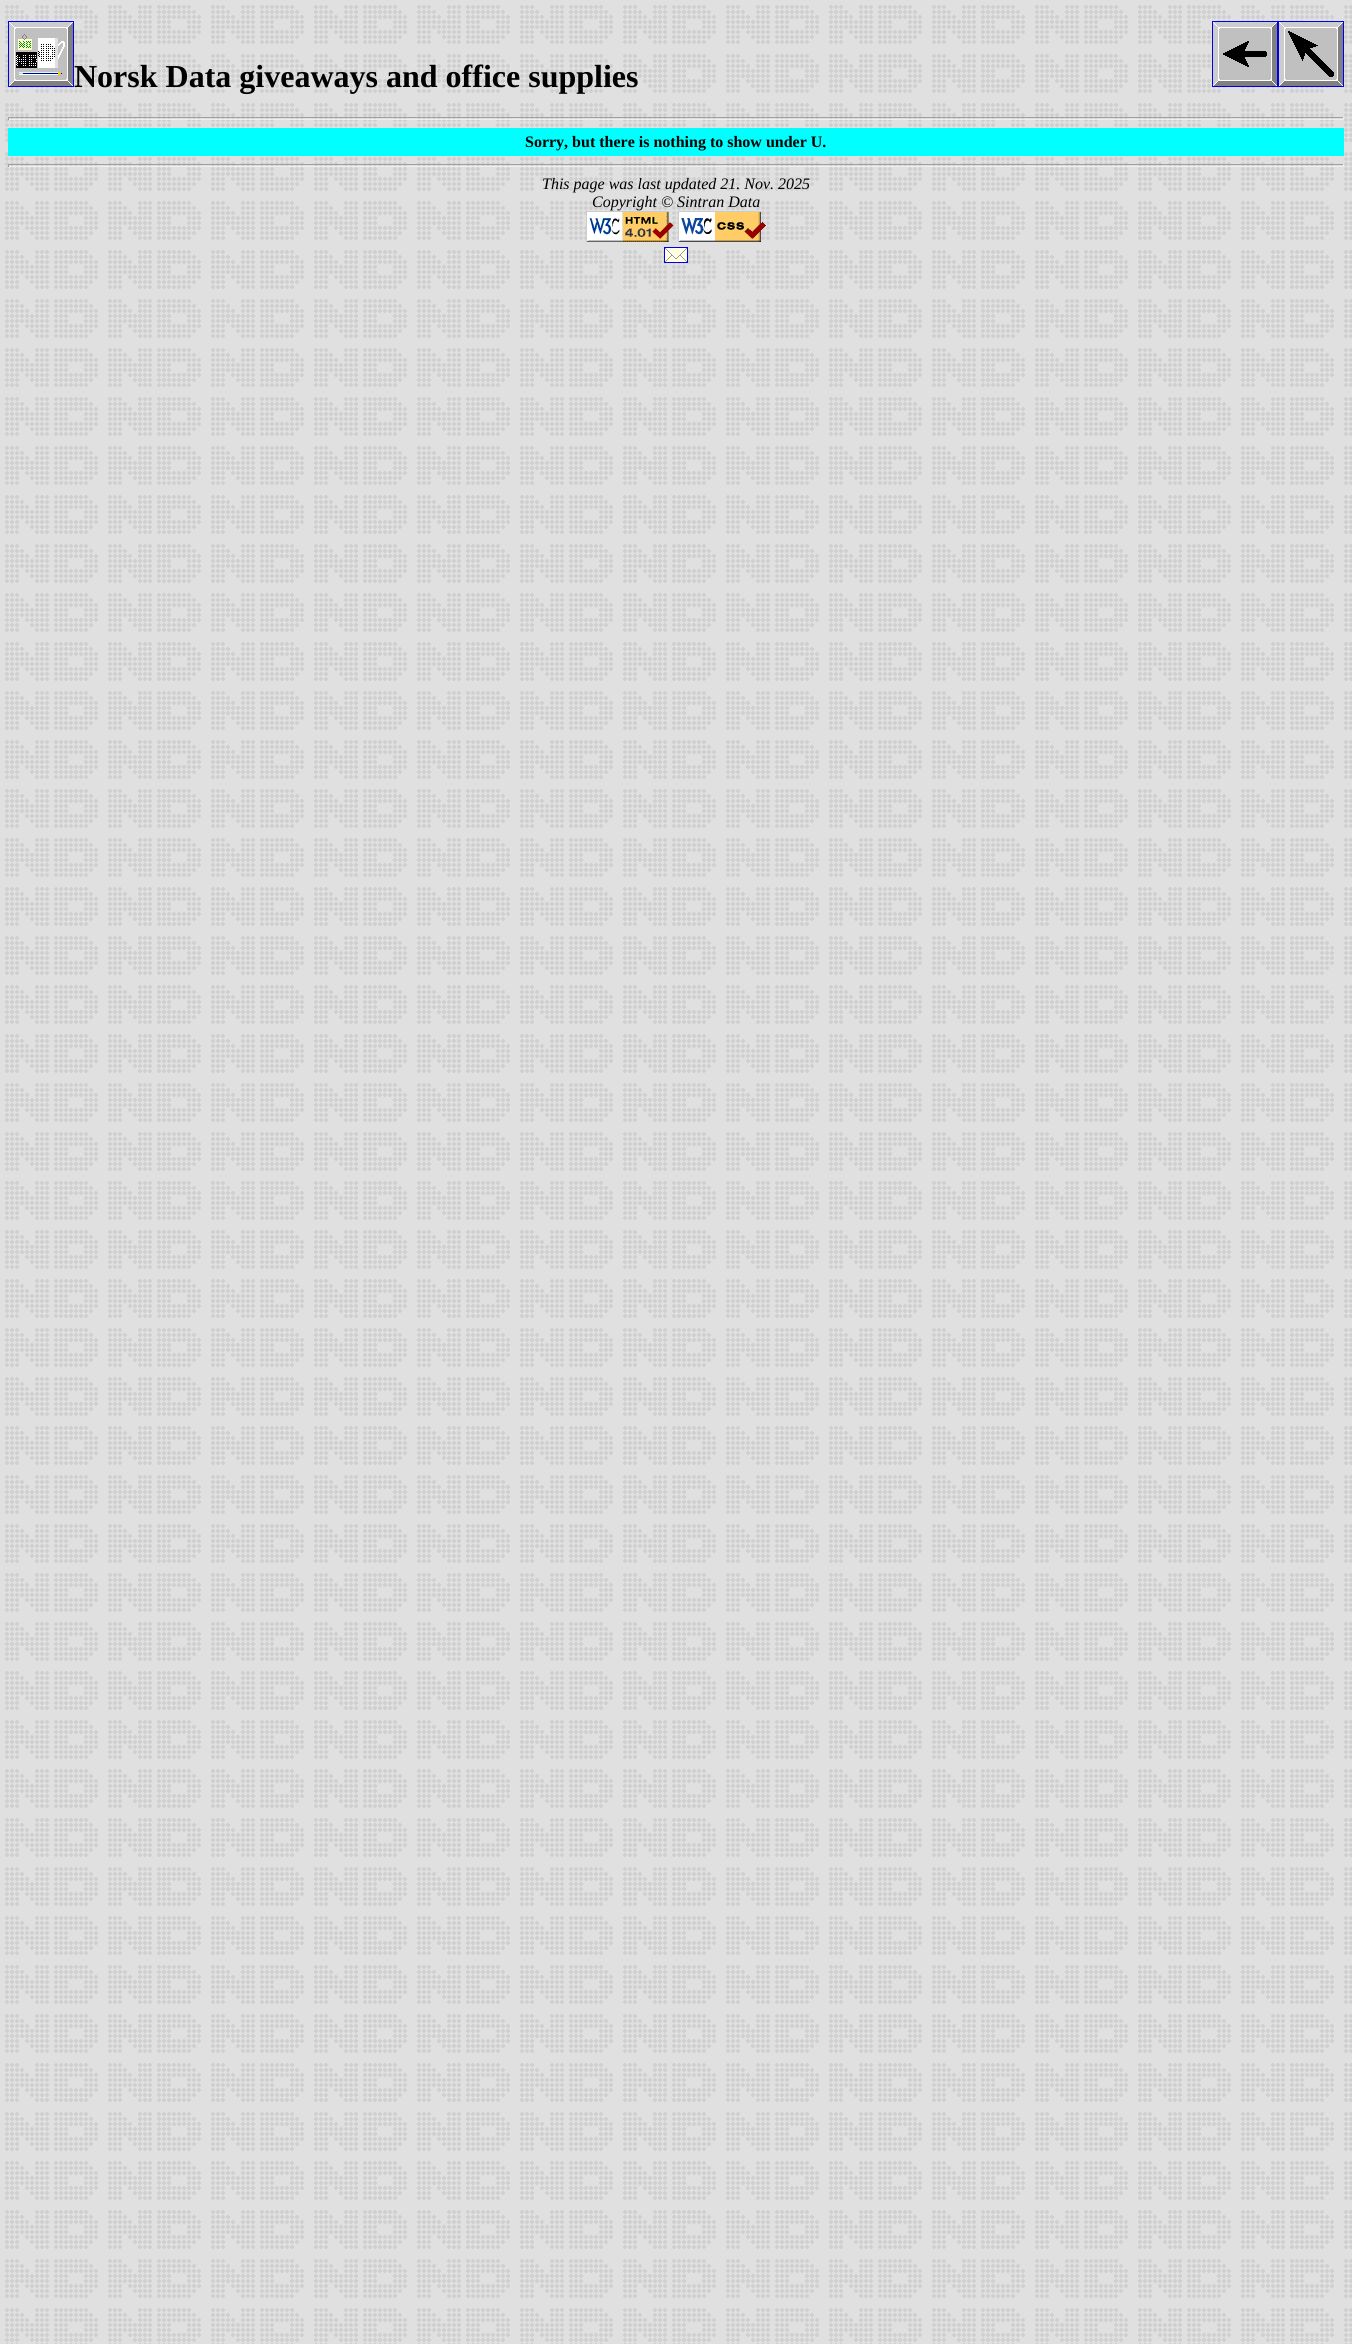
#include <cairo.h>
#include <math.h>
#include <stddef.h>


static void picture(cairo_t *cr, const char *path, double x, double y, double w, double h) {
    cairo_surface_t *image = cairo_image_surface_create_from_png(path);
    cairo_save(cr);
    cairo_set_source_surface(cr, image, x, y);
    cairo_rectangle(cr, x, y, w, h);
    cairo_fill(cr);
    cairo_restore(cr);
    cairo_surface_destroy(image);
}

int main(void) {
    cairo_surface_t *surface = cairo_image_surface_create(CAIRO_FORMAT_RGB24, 1352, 2344);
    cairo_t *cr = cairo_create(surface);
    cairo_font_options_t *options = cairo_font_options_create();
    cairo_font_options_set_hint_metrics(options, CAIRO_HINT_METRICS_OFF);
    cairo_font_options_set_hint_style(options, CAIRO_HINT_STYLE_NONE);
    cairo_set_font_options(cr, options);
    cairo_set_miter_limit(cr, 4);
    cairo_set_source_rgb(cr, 0.878, 0.878, 0.878);
    cairo_paint(cr);
    picture(cr, "img1.png", 5, 5, 1347, 2339);
    cairo_rectangle(cr, 8.5, 21.5, 65, 65);
    cairo_set_source_rgb(cr, 0, 0, 0.933);
    cairo_set_line_width(cr, 1);
    cairo_stroke(cr);
    picture(cr, "img2.png", 9, 22, 64, 64);
    cairo_select_font_face(cr, "Liberation Serif", CAIRO_FONT_SLANT_NORMAL, CAIRO_FONT_WEIGHT_BOLD);
    cairo_set_font_size(cr, 32);
    cairo_set_source_rgb(cr, 0, 0, 0);
    cairo_move_to(cr, 74, 87);
    cairo_show_text(cr, "Norsk Data giveaways and office supplies");
    cairo_rectangle(cr, 1212.5, 21.5, 65, 65);
    cairo_set_source_rgb(cr, 0, 0, 0.933);
    cairo_stroke(cr);
    picture(cr, "img3.png", 1213, 22, 64, 64);
    cairo_rectangle(cr, 1278.5, 21.5, 65, 65);
    cairo_stroke(cr);
    picture(cr, "img4.png", 1279, 22, 64, 64);
    cairo_set_source_rgb(cr, 0.624, 0.624, 0.624);
    cairo_rectangle(cr, 8, 117, 1336, 1);
    cairo_fill(cr);
    cairo_set_source_rgb(cr, 0.933, 0.933, 0.933);
    cairo_rectangle(cr, 1343, 117, 1, 3);
    cairo_fill(cr);
    cairo_rectangle(cr, 8, 119, 1336, 1);
    cairo_fill(cr);
    cairo_set_source_rgb(cr, 0.624, 0.624, 0.624);
    cairo_rectangle(cr, 8, 117, 1, 3);
    cairo_fill(cr);
    cairo_set_source_rgb(cr, 0, 1, 1);
    cairo_rectangle(cr, 8, 128, 1336, 28);
    cairo_fill(cr);
    cairo_set_font_size(cr, 16);
    cairo_set_source_rgb(cr, 0, 0, 0);
    cairo_move_to(cr, 525, 147);
    cairo_show_text(cr, "Sorry, but there is nothing to show under U.");
    cairo_set_source_rgb(cr, 0.624, 0.624, 0.624);
    cairo_rectangle(cr, 8, 164, 1336, 1);
    cairo_fill(cr);
    cairo_set_source_rgb(cr, 0.933, 0.933, 0.933);
    cairo_rectangle(cr, 1343, 164, 1, 3);
    cairo_fill(cr);
    cairo_rectangle(cr, 8, 166, 1336, 1);
    cairo_fill(cr);
    cairo_set_source_rgb(cr, 0.624, 0.624, 0.624);
    cairo_rectangle(cr, 8, 164, 1, 3);
    cairo_fill(cr);
    cairo_select_font_face(cr, "Liberation Serif", CAIRO_FONT_SLANT_ITALIC, CAIRO_FONT_WEIGHT_NORMAL);
    cairo_set_source_rgb(cr, 0, 0, 0);
    cairo_move_to(cr, 542, 189);
    cairo_show_text(cr, "This page was last updated 21. Nov. 2025");
    cairo_move_to(cr, 592, 207);
    cairo_show_text(cr, "Copyright © Sintran Data");
    picture(cr, "img5.png", 586, 211, 88, 31);
    picture(cr, "img6.png", 678, 211, 88, 31);
    cairo_rectangle(cr, 664.5, 247.5, 23, 15);
    cairo_set_source_rgb(cr, 0, 0, 0.933);
    cairo_stroke(cr);
    picture(cr, "img7.png", 665, 248, 22, 14);
    cairo_surface_write_to_png(surface, "page.png");
    cairo_font_options_destroy(options);
    cairo_destroy(cr);
    cairo_surface_destroy(surface);
    return 0;
}
